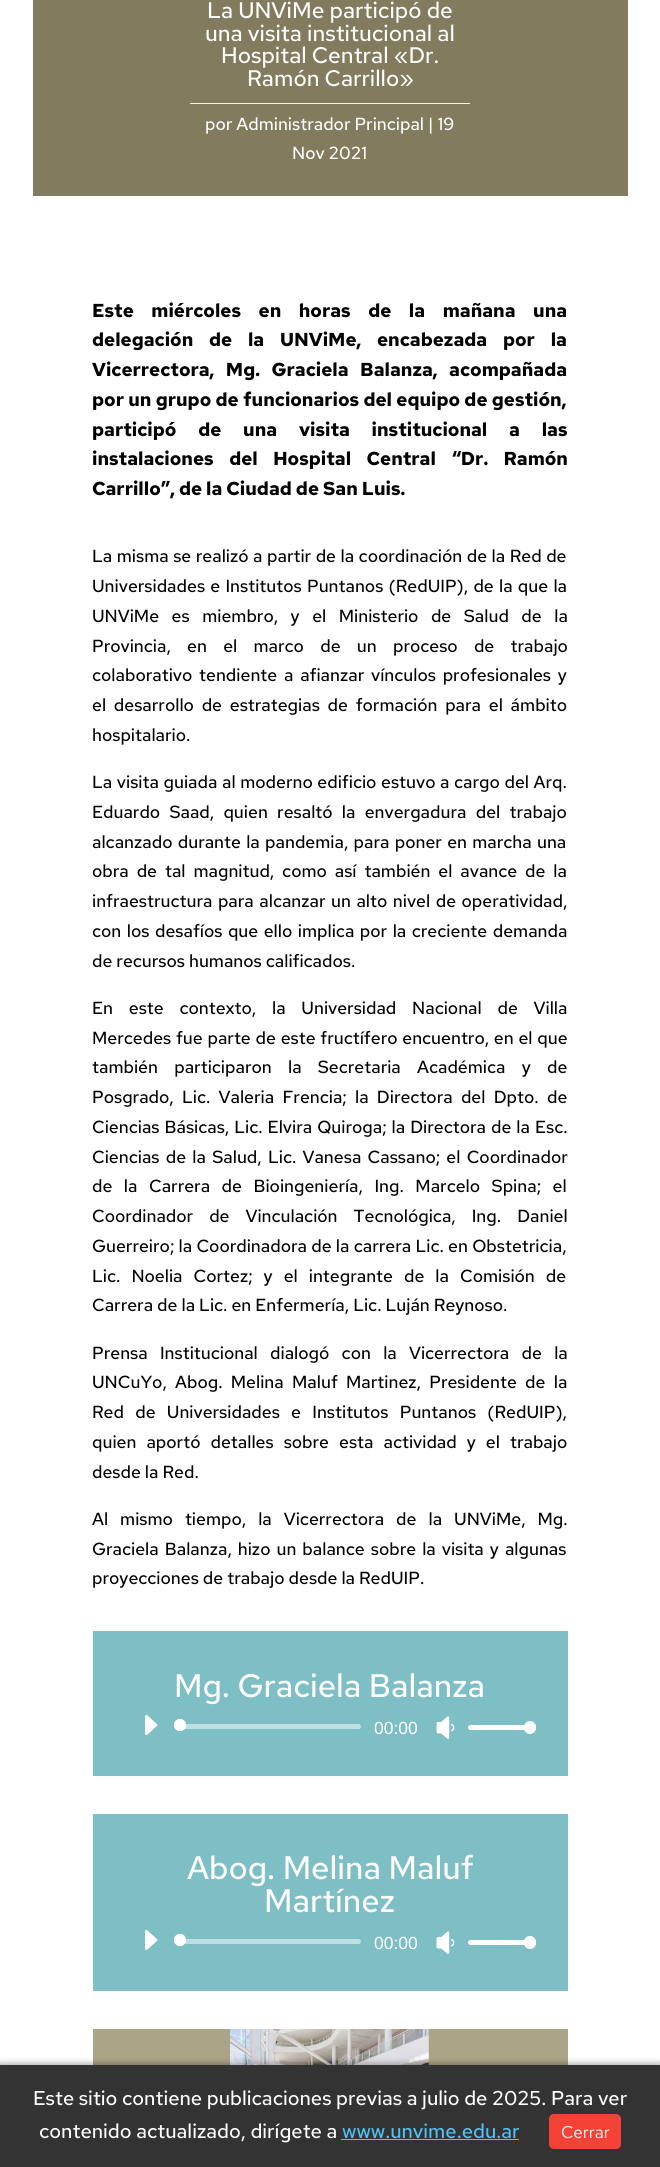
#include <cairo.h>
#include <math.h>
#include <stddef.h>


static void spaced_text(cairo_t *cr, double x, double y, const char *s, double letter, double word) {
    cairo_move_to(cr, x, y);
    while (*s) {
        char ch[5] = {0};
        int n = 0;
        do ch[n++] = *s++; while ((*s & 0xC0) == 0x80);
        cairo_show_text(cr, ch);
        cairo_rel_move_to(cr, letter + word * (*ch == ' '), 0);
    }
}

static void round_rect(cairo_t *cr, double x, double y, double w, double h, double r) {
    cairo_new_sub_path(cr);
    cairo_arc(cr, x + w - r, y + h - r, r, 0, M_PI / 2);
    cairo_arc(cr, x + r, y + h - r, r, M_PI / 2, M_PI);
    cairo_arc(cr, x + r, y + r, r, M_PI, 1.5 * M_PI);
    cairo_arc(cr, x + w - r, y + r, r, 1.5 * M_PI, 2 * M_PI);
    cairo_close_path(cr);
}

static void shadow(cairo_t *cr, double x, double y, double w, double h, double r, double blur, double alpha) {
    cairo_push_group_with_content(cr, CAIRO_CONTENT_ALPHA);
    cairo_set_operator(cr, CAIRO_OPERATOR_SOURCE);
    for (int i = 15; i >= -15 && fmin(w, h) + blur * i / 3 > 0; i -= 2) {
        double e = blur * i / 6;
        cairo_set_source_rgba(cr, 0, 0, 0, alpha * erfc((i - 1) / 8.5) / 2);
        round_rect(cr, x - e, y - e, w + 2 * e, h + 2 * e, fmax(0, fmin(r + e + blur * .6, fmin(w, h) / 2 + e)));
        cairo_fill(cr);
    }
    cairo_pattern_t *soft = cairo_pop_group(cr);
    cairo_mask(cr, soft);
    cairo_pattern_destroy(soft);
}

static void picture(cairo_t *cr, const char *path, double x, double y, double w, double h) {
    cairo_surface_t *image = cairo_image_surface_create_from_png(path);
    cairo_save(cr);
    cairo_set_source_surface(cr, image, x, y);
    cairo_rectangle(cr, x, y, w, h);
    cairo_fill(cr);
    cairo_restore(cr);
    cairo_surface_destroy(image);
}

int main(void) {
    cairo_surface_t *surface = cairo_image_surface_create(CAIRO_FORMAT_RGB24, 660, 2167);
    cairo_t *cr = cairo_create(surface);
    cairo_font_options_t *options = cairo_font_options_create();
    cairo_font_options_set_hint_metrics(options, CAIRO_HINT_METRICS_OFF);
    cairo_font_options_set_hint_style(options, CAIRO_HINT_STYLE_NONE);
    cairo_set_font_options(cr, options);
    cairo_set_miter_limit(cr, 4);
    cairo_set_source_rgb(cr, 1, 1, 1);
    cairo_paint(cr);
    cairo_set_source_rgb(cr, 0.514, 0.482, 0.365);
    cairo_rectangle(cr, 33, 0, 595, 196);
    cairo_fill(cr);
    cairo_select_font_face(cr, "Red Hat Text Medium", CAIRO_FONT_SLANT_NORMAL, CAIRO_FONT_WEIGHT_NORMAL);
    cairo_set_font_size(cr, 22.5);
    cairo_set_source_rgb(cr, 1, 1, 1);
    cairo_move_to(cr, 207, 18);
    cairo_show_text(cr, "La UNViMe participó de");
    cairo_move_to(cr, 205, 41);
    cairo_show_text(cr, "una visita institucional al");
    cairo_move_to(cr, 221, 63);
    cairo_show_text(cr, "Hospital Central «Dr.");
    cairo_move_to(cr, 247, 86);
    cairo_show_text(cr, "Ramón Carrillo»");
    cairo_set_source_rgb(cr, 1, 0.949, 0.882);
    cairo_rectangle(cr, 190, 103, 280, 1);
    cairo_fill(cr);
    cairo_set_font_size(cr, 17.5);
    cairo_set_source_rgb(cr, 1, 1, 1);
    cairo_move_to(cr, 205, 130);
    cairo_show_text(cr, "por Administrador Principal | 19");
    cairo_move_to(cr, 292, 159);
    cairo_show_text(cr, "Nov 2021");
    cairo_select_font_face(cr, "Red Hat Text", CAIRO_FONT_SLANT_NORMAL, CAIRO_FONT_WEIGHT_BOLD);
    cairo_set_font_size(cr, 18.75);
    cairo_set_source_rgb(cr, 0, 0, 0);
    spaced_text(cr, 92, 317, "Este miércoles en horas de la mañana una", 0, 13.5);
    spaced_text(cr, 92, 346, "delegación de la UNViMe, encabezada por la", 0, 11.75);
    spaced_text(cr, 92, 376, "Vicerrectora, Mg. Graciela Balanza, acompañada", 0, 7.5);
    spaced_text(cr, 92, 406, "por un grupo de funcionarios del equipo de gestión,", 0, 0.25);
    spaced_text(cr, 92, 436, "participó de una visita institucional a las", 0, 17.75);
    spaced_text(cr, 92, 465, "instalaciones del Hospital Central “Dr. Ramón", 0, 11.5);
    cairo_move_to(cr, 92, 495);
    cairo_show_text(cr, "Carrillo”, de la Ciudad de San Luis.");
    cairo_select_font_face(cr, "Red Hat Text Medium", CAIRO_FONT_SLANT_NORMAL, CAIRO_FONT_WEIGHT_NORMAL);
    cairo_set_font_size(cr, 17.5);
    spaced_text(cr, 92, 562, "La misma se realizó a partir de la coordinación de la Red de", 0, 0.5);
    spaced_text(cr, 92, 592, "Universidades e Institutos Puntanos (RedUIP), de la que la", 0, 1.25);
    spaced_text(cr, 92, 622, "UNViMe es miembro, y el Ministerio de Salud de la", 0, 8.5);
    spaced_text(cr, 92, 652, "Provincia, en el marco de un proceso de trabajo", 0, 12.25);
    spaced_text(cr, 92, 681, "colaborativo tendiente a afianzar vínculos profesionales y", 0, 2.75);
    spaced_text(cr, 92, 711, "el desarrollo de estrategias de formación para el ámbito", 0, 3.75);
    cairo_move_to(cr, 92, 741);
    cairo_show_text(cr, "hospitalario.");
    spaced_text(cr, 92, 788, "La visita guiada al moderno edificio estuvo a cargo del Arq.", 0, 0.6);
    spaced_text(cr, 92, 818, "Eduardo Saad, quien resaltó la envergadura del trabajo", 0, 5.25);
    spaced_text(cr, 92, 848, "alcanzado durante la pandemia, para poner en marcha una", 0, 1.25);
    spaced_text(cr, 92, 877, "obra de tal magnitud, como así también el avance de la", 0, 3.9);
    spaced_text(cr, 92, 907, "infraestructura para alcanzar un alto nivel de operatividad,", 0, 1.5);
    spaced_text(cr, 92, 937, "con los desafíos que ello implica por la creciente demanda", 0, 1.5);
    cairo_move_to(cr, 92, 967);
    cairo_show_text(cr, "de recursos humanos calificados.");
    spaced_text(cr, 92, 1014, "En este contexto, la Universidad Nacional de Villa", 0, 11.75);
    spaced_text(cr, 92, 1044, "Mercedes fue parte de este fructífero encuentro, en el que", 0, 0.75);
    spaced_text(cr, 92, 1073, "también participaron la Secretaria Académica y de", 0, 12.25);
    spaced_text(cr, 92, 1103, "Posgrado, Lic. Valeria Frencia; la Directora del Dpto. de", 0, 4.25);
    spaced_text(cr, 92, 1133, "Ciencias Básicas, Lic. Elvira Quiroga; la Directora de la Esc.", 0, 1);
    spaced_text(cr, 92, 1163, "Ciencias de la Salud, Lic. Vanesa Cassano; el Coordinador", 0, 2.25);
    spaced_text(cr, 92, 1192, "de la Carrera de Bioingeniería, Ing. Marcelo Spina; el", 0, 7.5);
    spaced_text(cr, 92, 1222, "Coordinador de Vinculación Tecnológica, Ing. Daniel", 0, 12);
    spaced_text(cr, 92, 1252, "Guerreiro; la Coordinadora de la carrera Lic. en Obstetricia,", 0, 0.25);
    spaced_text(cr, 92, 1282, "Lic. Noelia Cortez; y el integrante de la Comisión de", 0, 7);
    cairo_move_to(cr, 92, 1311);
    cairo_show_text(cr, "Carrera de la Lic. en Enfermería, Lic. Luján Reynoso.");
    spaced_text(cr, 92, 1359, "Prensa Institucional dialogó con la Vicerrectora de la", 0, 8.25);
    spaced_text(cr, 92, 1388, "UNCuYo, Abog. Melina Maluf Martinez, Presidente de la", 0, 4.25);
    spaced_text(cr, 92, 1418, "Red de Universidades e Institutos Puntanos (RedUIP),", 0, 7.25);
    spaced_text(cr, 92, 1448, "quien aportó detalles sobre esta actividad y el trabajo", 0, 6);
    cairo_move_to(cr, 92, 1478);
    cairo_show_text(cr, "desde la Red.");
    spaced_text(cr, 92, 1525, "Al mismo tiempo, la Vicerrectora de la UNViMe, Mg.", 0, 8);
    spaced_text(cr, 92, 1555, "Graciela Balanza, hizo un balance sobre la visita y algunas", 0, 2);
    cairo_move_to(cr, 92, 1584);
    cairo_show_text(cr, "proyecciones de trabajo desde la RedUIP.");
    cairo_set_source_rgb(cr, 0.494, 0.745, 0.773);
    cairo_rectangle(cr, 93, 1631, 475, 145);
    cairo_fill(cr);
    cairo_set_font_size(cr, 32.5);
    cairo_set_source_rgb(cr, 1, 1, 1);
    cairo_move_to(cr, 174, 1697);
    cairo_show_text(cr, "Mg. Graciela Balanza");
    picture(cr, "img1.png", 145, 1715, 13, 20);
    cairo_set_source_rgb(cr, 0.749, 0.875, 0.886);
    round_rect(cr, 183, 1724, 178, 5, 2.5);
    cairo_fill(cr);
    cairo_set_source_rgba(cr, 1, 1, 1, 0.9);
    cairo_arc(cr, 180, 1725, 6, 0, 2 * M_PI);
    cairo_fill(cr);
    cairo_arc(cr, 180, 1725, 3.5, 0, 2 * M_PI);
    cairo_set_line_width(cr, 5);
    cairo_stroke(cr);
    cairo_select_font_face(cr, "Liberation Sans", CAIRO_FONT_SLANT_NORMAL, CAIRO_FONT_WEIGHT_NORMAL);
    cairo_set_font_size(cr, 17.5);
    cairo_set_source_rgb(cr, 1, 1, 1);
    cairo_move_to(cr, 374, 1734);
    cairo_show_text(cr, "00:00");
    picture(cr, "img2.png", 436, 1716, 19, 23);
    round_rect(cr, 468, 1725, 62, 5, 2.5);
    cairo_fill(cr);
    round_rect(cr, 524, 1721, 12, 13, 6);
    cairo_fill(cr);
    cairo_set_source_rgb(cr, 0.494, 0.745, 0.773);
    cairo_rectangle(cr, 93, 1814, 475, 177);
    cairo_fill(cr);
    cairo_select_font_face(cr, "Red Hat Text Medium", CAIRO_FONT_SLANT_NORMAL, CAIRO_FONT_WEIGHT_NORMAL);
    cairo_set_font_size(cr, 32.5);
    cairo_set_source_rgb(cr, 1, 1, 1);
    cairo_move_to(cr, 187, 1879);
    cairo_show_text(cr, "Abog. Melina Maluf");
    cairo_move_to(cr, 264, 1912);
    cairo_show_text(cr, "Martínez");
    picture(cr, "img1.png", 145, 1930, 13, 20);
    cairo_set_source_rgb(cr, 0.749, 0.875, 0.886);
    round_rect(cr, 183, 1939, 178, 5, 2.5);
    cairo_fill(cr);
    cairo_set_source_rgba(cr, 1, 1, 1, 0.9);
    cairo_arc(cr, 180, 1940, 6, 0, 2 * M_PI);
    cairo_fill(cr);
    cairo_arc(cr, 180, 1940, 3.5, 0, 2 * M_PI);
    cairo_stroke(cr);
    cairo_select_font_face(cr, "Liberation Sans", CAIRO_FONT_SLANT_NORMAL, CAIRO_FONT_WEIGHT_NORMAL);
    cairo_set_font_size(cr, 17.5);
    cairo_set_source_rgb(cr, 1, 1, 1);
    cairo_move_to(cr, 374, 1949);
    cairo_show_text(cr, "00:00");
    picture(cr, "img2.png", 436, 1931, 19, 23);
    round_rect(cr, 468, 1940, 62, 5, 2.5);
    cairo_fill(cr);
    round_rect(cr, 524, 1936, 12, 13, 6);
    cairo_fill(cr);
    cairo_set_source_rgb(cr, 0.671, 0.643, 0.529);
    cairo_rectangle(cr, 93, 2029, 475, 36);
    cairo_fill(cr);
    picture(cr, "img3.png", 230, 2029, 199, 36);
    cairo_set_source_rgb(cr, 0, 0, 0);
    shadow(cr, 0, 2063, 660, 102, 0, 3, 0.3);
    cairo_set_source_rgb(cr, 0.2, 0.2, 0.2);
    cairo_rectangle(cr, 0, 2065, 660, 102);
    cairo_fill(cr);
    cairo_select_font_face(cr, "Red Hat Text Medium", CAIRO_FONT_SLANT_NORMAL, CAIRO_FONT_WEIGHT_NORMAL);
    cairo_set_font_size(cr, 20);
    cairo_set_source_rgb(cr, 1, 1, 1);
    cairo_move_to(cr, 33, 2105);
    cairo_show_text(cr, "Este sitio contiene publicaciones previas a julio de 2025. Para ver");
    cairo_move_to(cr, 39, 2138);
    cairo_show_text(cr, "contenido actualizado, dirígete a");
    cairo_set_source_rgb(cr, 0.31, 0.765, 0.969);
    cairo_move_to(cr, 342, 2138);
    cairo_show_text(cr, "www.unvime.edu.ar");
    cairo_rectangle(cr, 341, 2139, 178, 1);
    cairo_fill(cr);
    cairo_set_source_rgb(cr, 0.957, 0.263, 0.212);
    round_rect(cr, 549, 2114, 72, 35, 5);
    cairo_fill(cr);
    cairo_select_font_face(cr, "Red Hat Text", CAIRO_FONT_SLANT_NORMAL, CAIRO_FONT_WEIGHT_NORMAL);
    cairo_set_font_size(cr, 17);
    cairo_set_source_rgb(cr, 1, 1, 1);
    cairo_move_to(cr, 561, 2138);
    cairo_show_text(cr, "Cerrar");
    cairo_surface_write_to_png(surface, "page.png");
    cairo_font_options_destroy(options);
    cairo_destroy(cr);
    cairo_surface_destroy(surface);
    return 0;
}
